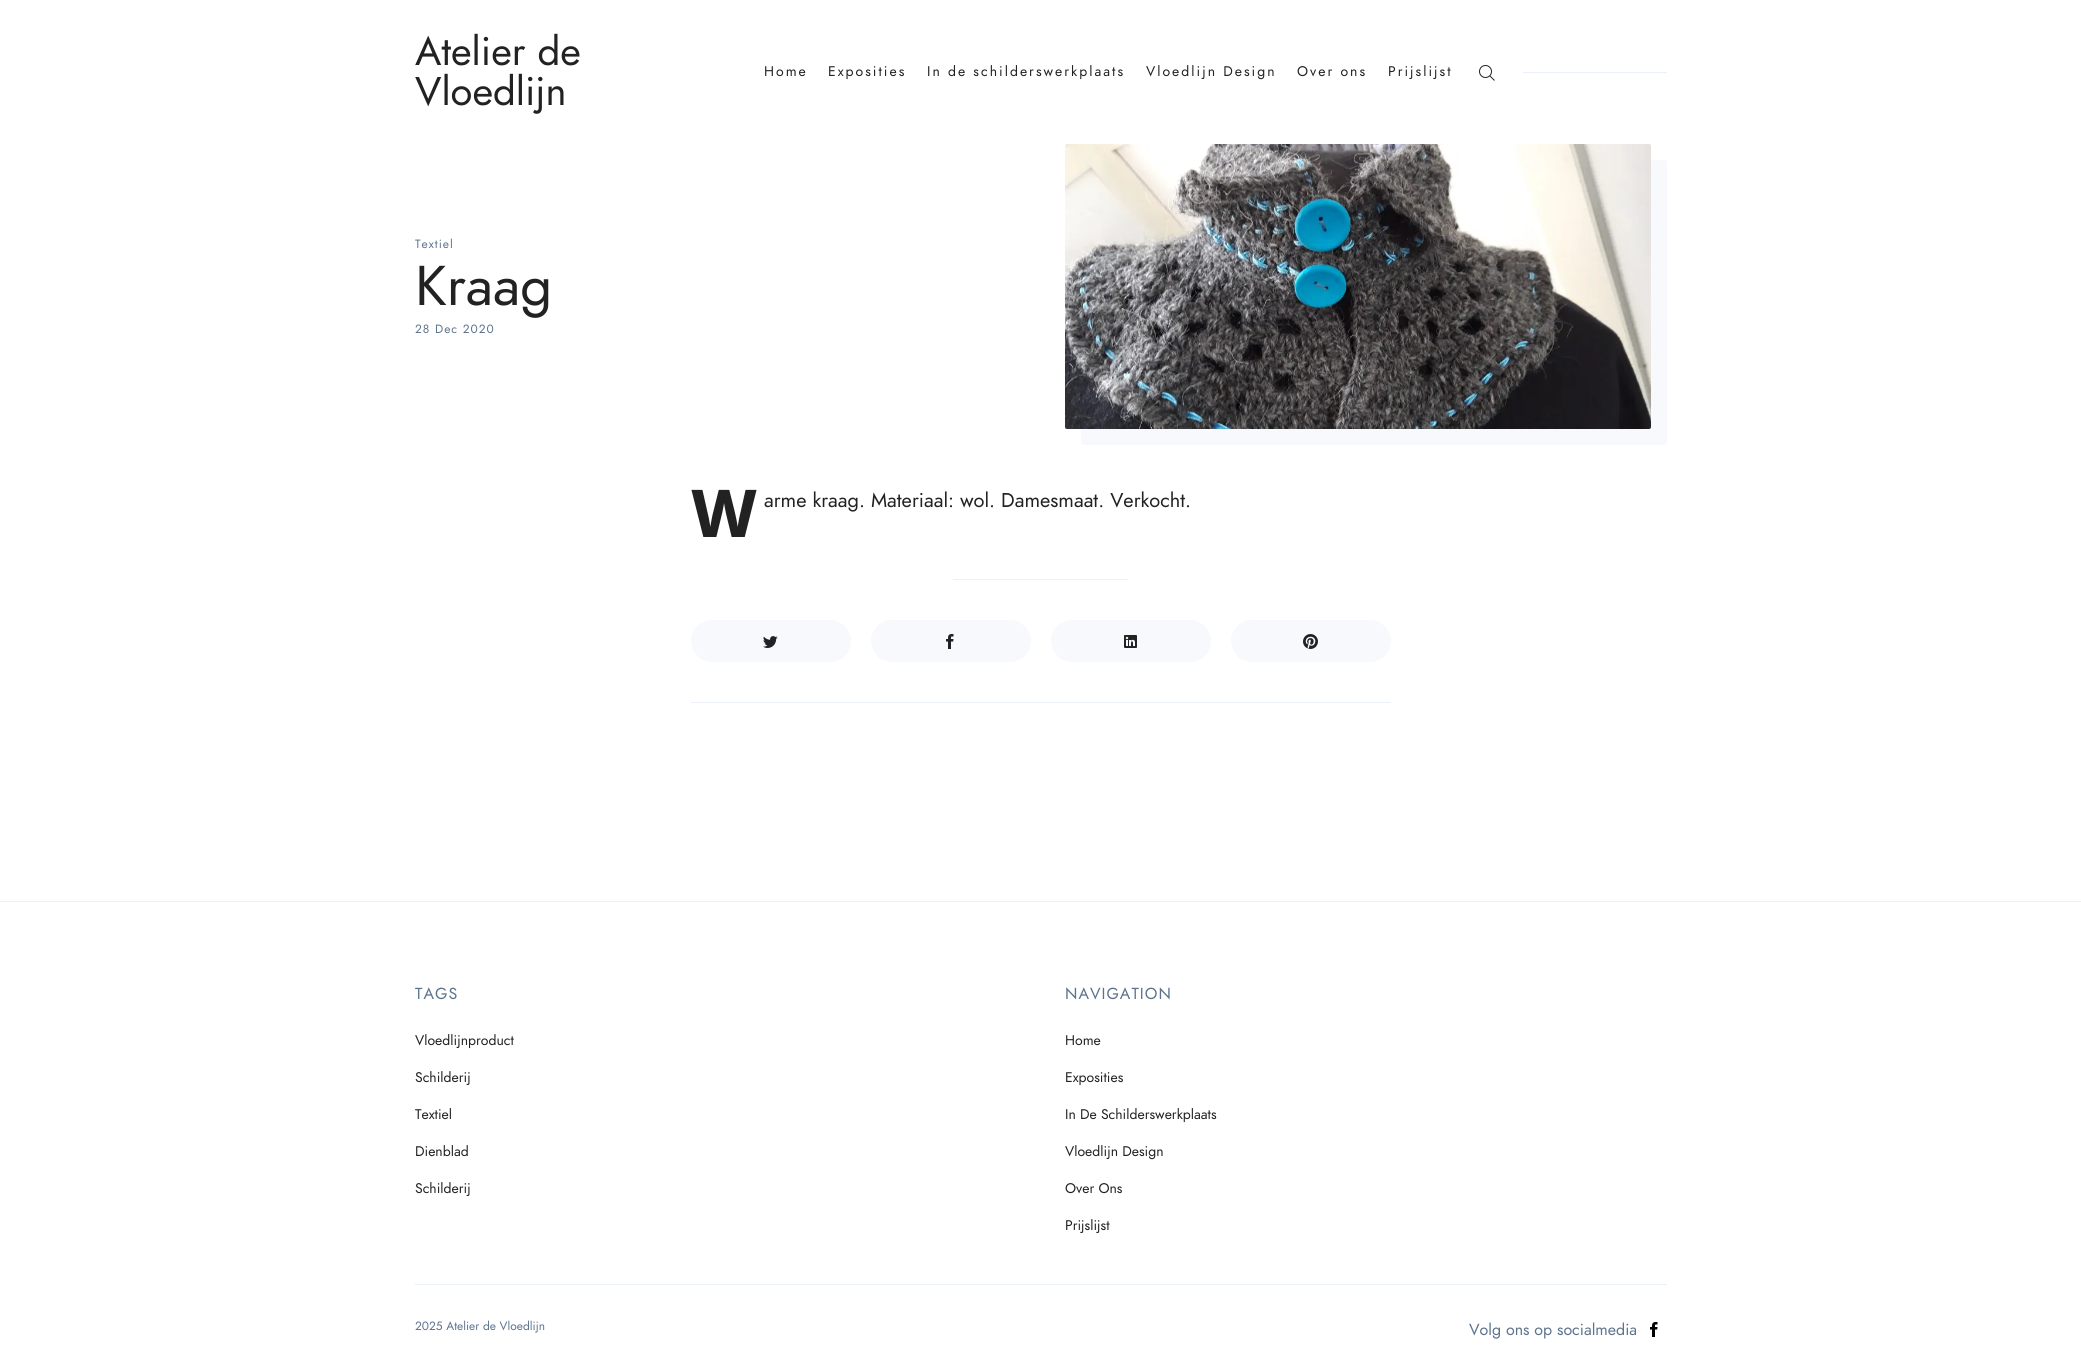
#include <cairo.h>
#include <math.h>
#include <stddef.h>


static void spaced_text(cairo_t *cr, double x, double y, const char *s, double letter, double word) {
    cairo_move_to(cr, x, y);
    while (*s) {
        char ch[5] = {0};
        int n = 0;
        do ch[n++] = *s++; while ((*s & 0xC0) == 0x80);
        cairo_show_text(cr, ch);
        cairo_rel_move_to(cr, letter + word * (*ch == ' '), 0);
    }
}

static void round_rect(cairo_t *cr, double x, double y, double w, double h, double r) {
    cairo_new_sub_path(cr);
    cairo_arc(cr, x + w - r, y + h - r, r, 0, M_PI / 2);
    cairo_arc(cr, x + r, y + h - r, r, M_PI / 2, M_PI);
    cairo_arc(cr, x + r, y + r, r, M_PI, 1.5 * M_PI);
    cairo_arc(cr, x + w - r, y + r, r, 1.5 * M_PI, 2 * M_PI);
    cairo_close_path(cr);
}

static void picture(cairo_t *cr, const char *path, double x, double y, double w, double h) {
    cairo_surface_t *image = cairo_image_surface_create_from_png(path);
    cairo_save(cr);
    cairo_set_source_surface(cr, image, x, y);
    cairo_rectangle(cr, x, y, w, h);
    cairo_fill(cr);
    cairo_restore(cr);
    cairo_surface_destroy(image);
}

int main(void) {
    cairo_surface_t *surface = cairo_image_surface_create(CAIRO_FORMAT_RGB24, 2081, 1365);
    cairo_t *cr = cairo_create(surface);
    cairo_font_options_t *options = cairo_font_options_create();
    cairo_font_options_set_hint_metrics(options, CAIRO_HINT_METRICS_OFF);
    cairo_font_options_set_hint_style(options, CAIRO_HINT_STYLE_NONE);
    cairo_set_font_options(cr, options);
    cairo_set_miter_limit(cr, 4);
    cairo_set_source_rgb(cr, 1, 1, 1);
    cairo_paint(cr);
    cairo_select_font_face(cr, "Jost", CAIRO_FONT_SLANT_NORMAL, CAIRO_FONT_WEIGHT_NORMAL);
    cairo_set_font_size(cr, 40);
    cairo_set_source_rgb(cr, 0.133, 0.133, 0.133);
    cairo_move_to(cr, 415, 65);
    cairo_show_text(cr, "Atelier de");
    cairo_move_to(cr, 415, 105);
    cairo_show_text(cr, "Vloedlijn");
    cairo_set_font_size(cr, 14);
    spaced_text(cr, 764, 76, "Home", 2, 0);
    spaced_text(cr, 828, 76, "Exposities", 2, 0);
    spaced_text(cr, 927, 76, "In de schilderswerkplaats", 2, 0);
    spaced_text(cr, 1146, 76, "Vloedlijn Design", 2, 0);
    spaced_text(cr, 1297, 76, "Over ons", 2, 0);
    spaced_text(cr, 1388, 76, "Prijslijst", 2, 0);
    picture(cr, "img1.png", 1479, 65, 16, 16);
    cairo_set_source_rgb(cr, 0.922, 0.945, 0.973);
    cairo_rectangle(cr, 1523, 72, 144, 1);
    cairo_fill(cr);
    cairo_set_font_size(cr, 12);
    cairo_set_source_rgb(cr, 0.365, 0.451, 0.553);
    spaced_text(cr, 415, 248, "Textiel", 1, 0);
    cairo_set_font_size(cr, 56);
    cairo_set_source_rgb(cr, 0.133, 0.133, 0.133);
    cairo_move_to(cr, 415, 305);
    cairo_show_text(cr, "Kraag");
    cairo_set_font_size(cr, 12);
    cairo_set_source_rgb(cr, 0.365, 0.451, 0.553);
    spaced_text(cr, 415, 333, "28 Dec 2020", 1, 0);
    cairo_set_source_rgb(cr, 0.965, 0.976, 0.988);
    cairo_new_path(cr);
    cairo_move_to(cr, 1081, 429);
    cairo_line_to(cr, 1081, 443);
    cairo_curve_to(cr, 1081, 444, 1082, 445, 1083, 445);
    cairo_line_to(cr, 1665, 445);
    cairo_curve_to(cr, 1666, 445, 1667, 444, 1667, 443);
    cairo_line_to(cr, 1667, 162);
    cairo_curve_to(cr, 1667, 161, 1666, 160, 1665, 160);
    cairo_line_to(cr, 1651, 160);
    cairo_line_to(cr, 1651, 427);
    cairo_curve_to(cr, 1651, 428, 1650, 429, 1649, 429);
    cairo_close_path(cr);
    cairo_fill(cr);
    picture(cr, "img2.png", 1065, 144, 586, 285);
    cairo_select_font_face(cr, "Noto Sans ExtraBold", CAIRO_FONT_SLANT_NORMAL, CAIRO_FONT_WEIGHT_NORMAL);
    cairo_set_font_size(cr, 66);
    cairo_set_source_rgb(cr, 0.133, 0.133, 0.133);
    cairo_move_to(cr, 691, 537);
    cairo_show_text(cr, "W");
    cairo_select_font_face(cr, "Jost", CAIRO_FONT_SLANT_NORMAL, CAIRO_FONT_WEIGHT_NORMAL);
    cairo_set_font_size(cr, 20);
    cairo_move_to(cr, 764, 507);
    cairo_show_text(cr, "arme kraag. Materiaal: wol. Damesmaat. Verkocht.");
    cairo_set_source_rgb(cr, 0.922, 0.945, 0.973);
    cairo_rectangle(cr, 953, 579, 175, 1);
    cairo_fill(cr);
    cairo_set_source_rgb(cr, 0.965, 0.976, 0.988);
    round_rect(cr, 691, 620, 160, 42, 21);
    cairo_fill(cr);
    picture(cr, "img3.png", 763, 636, 15, 12);
    round_rect(cr, 871, 620, 160, 42, 21);
    cairo_fill(cr);
    picture(cr, "img4.png", 946, 634, 8, 15);
    round_rect(cr, 1051, 620, 160, 42, 21);
    cairo_fill(cr);
    picture(cr, "img5.png", 1124, 635, 13, 13);
    round_rect(cr, 1231, 620, 160, 42, 21);
    cairo_fill(cr);
    picture(cr, "img6.png", 1303, 634, 15, 15);
    cairo_set_source_rgb(cr, 0.922, 0.945, 0.973);
    cairo_rectangle(cr, 691, 702, 700, 1);
    cairo_fill(cr);
    cairo_rectangle(cr, 0, 901, 2081, 1);
    cairo_fill(cr);
    cairo_set_font_size(cr, 16);
    cairo_set_source_rgb(cr, 0.365, 0.451, 0.553);
    spaced_text(cr, 415, 999, "TAGS", 1, 0);
    cairo_set_font_size(cr, 14);
    cairo_set_source_rgb(cr, 0.133, 0.133, 0.133);
    cairo_move_to(cr, 415, 1045);
    cairo_show_text(cr, "Vloedlijnproduct");
    cairo_move_to(cr, 415, 1082);
    cairo_show_text(cr, "Schilderij");
    cairo_move_to(cr, 415, 1119);
    cairo_show_text(cr, "Textiel");
    cairo_move_to(cr, 415, 1156);
    cairo_show_text(cr, "Dienblad");
    cairo_move_to(cr, 415, 1193);
    cairo_show_text(cr, "Schilderij");
    cairo_set_font_size(cr, 16);
    cairo_set_source_rgb(cr, 0.365, 0.451, 0.553);
    spaced_text(cr, 1065, 999, "NAVIGATION", 1, 0);
    cairo_set_font_size(cr, 14);
    cairo_set_source_rgb(cr, 0.133, 0.133, 0.133);
    cairo_move_to(cr, 1065, 1045);
    cairo_show_text(cr, "Home");
    cairo_move_to(cr, 1065, 1082);
    cairo_show_text(cr, "Exposities");
    cairo_move_to(cr, 1065, 1119);
    cairo_show_text(cr, "In De Schilderswerkplaats");
    cairo_move_to(cr, 1065, 1156);
    cairo_show_text(cr, "Vloedlijn Design");
    cairo_move_to(cr, 1065, 1193);
    cairo_show_text(cr, "Over Ons");
    cairo_move_to(cr, 1065, 1230);
    cairo_show_text(cr, "Prijslijst");
    cairo_set_source_rgb(cr, 0.922, 0.945, 0.973);
    cairo_rectangle(cr, 415, 1284, 1252, 1);
    cairo_fill(cr);
    cairo_set_font_size(cr, 12);
    cairo_set_source_rgb(cr, 0.365, 0.451, 0.553);
    cairo_move_to(cr, 415, 1330);
    cairo_show_text(cr, "2025 Atelier de Vloedlijn");
    cairo_set_font_size(cr, 16);
    cairo_move_to(cr, 1469, 1335);
    cairo_show_text(cr, "Volg ons op socialmedia");
    picture(cr, "img7.png", 1650, 1322, 8, 15);
    cairo_surface_write_to_png(surface, "page.png");
    cairo_font_options_destroy(options);
    cairo_destroy(cr);
    cairo_surface_destroy(surface);
    return 0;
}
